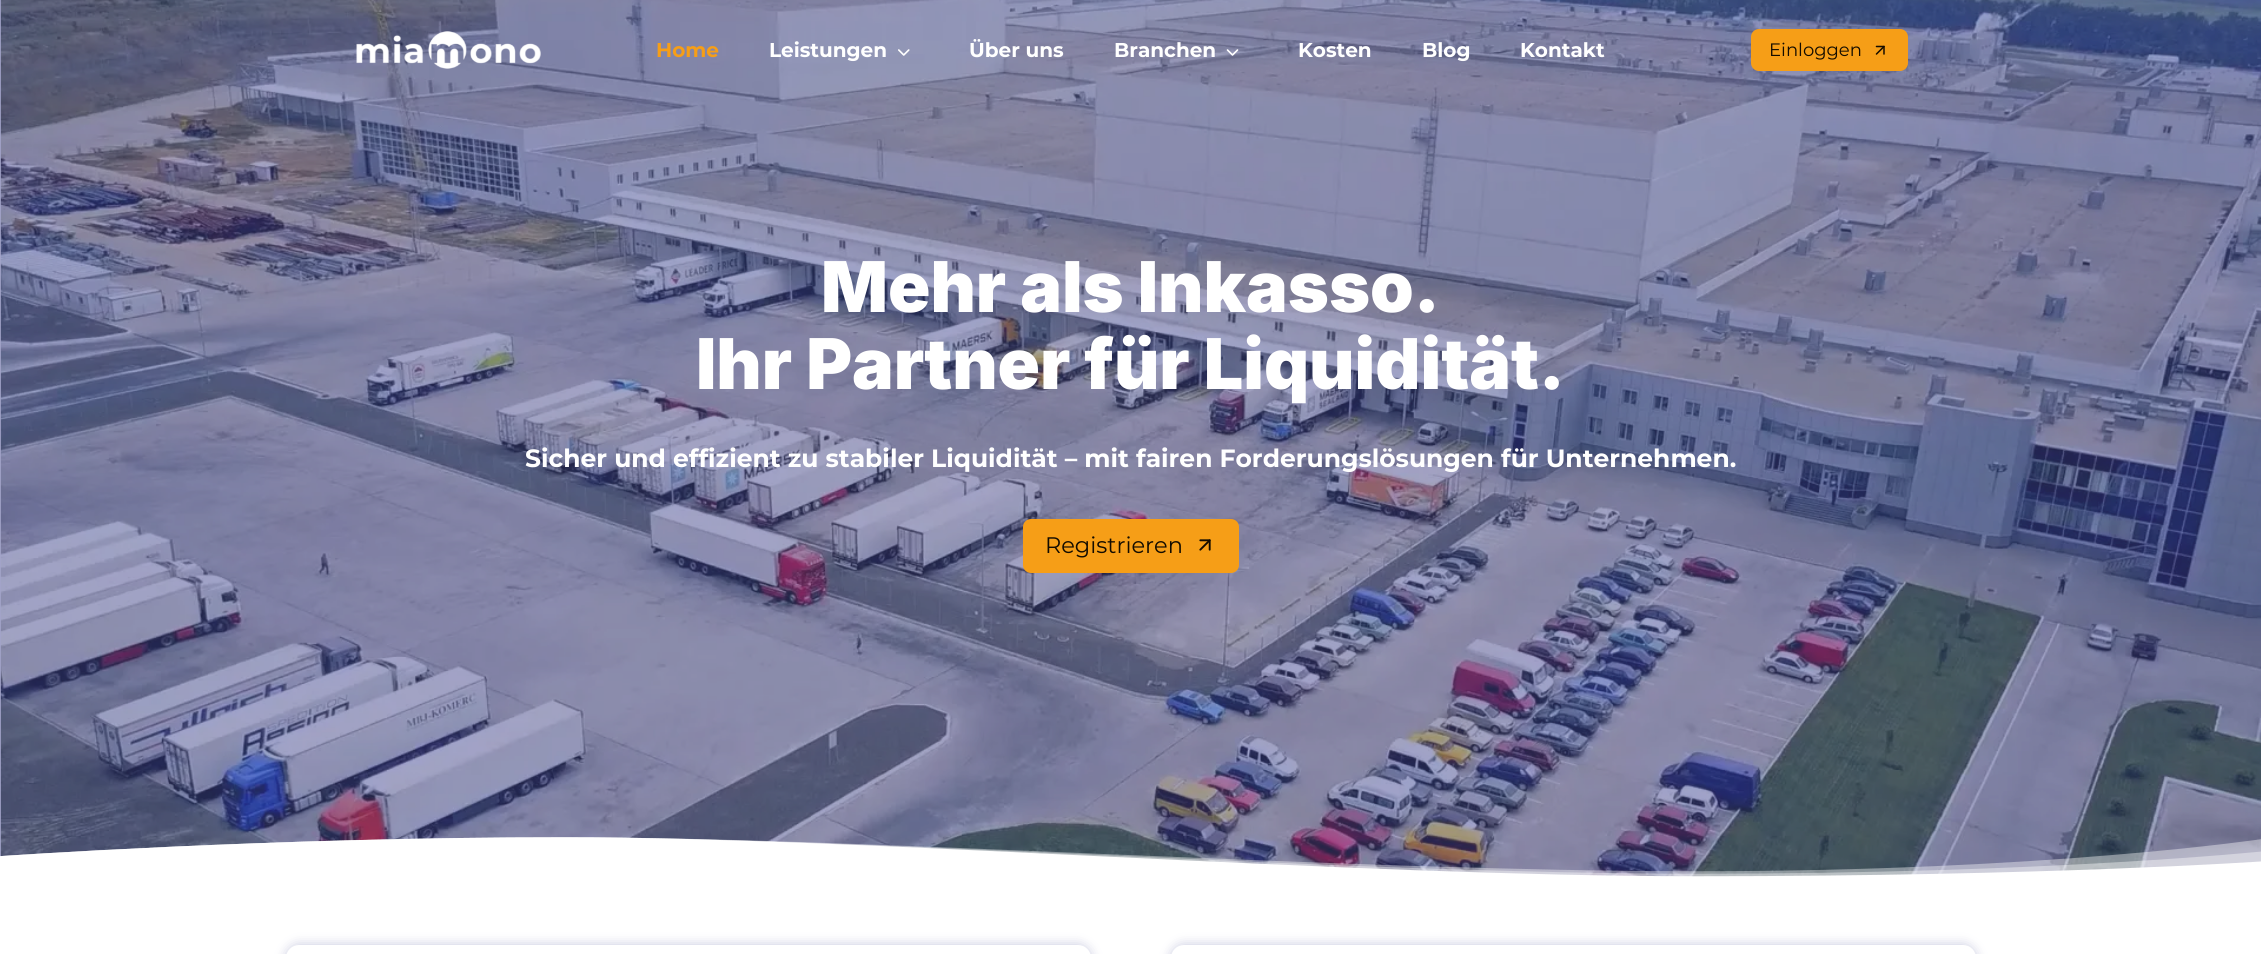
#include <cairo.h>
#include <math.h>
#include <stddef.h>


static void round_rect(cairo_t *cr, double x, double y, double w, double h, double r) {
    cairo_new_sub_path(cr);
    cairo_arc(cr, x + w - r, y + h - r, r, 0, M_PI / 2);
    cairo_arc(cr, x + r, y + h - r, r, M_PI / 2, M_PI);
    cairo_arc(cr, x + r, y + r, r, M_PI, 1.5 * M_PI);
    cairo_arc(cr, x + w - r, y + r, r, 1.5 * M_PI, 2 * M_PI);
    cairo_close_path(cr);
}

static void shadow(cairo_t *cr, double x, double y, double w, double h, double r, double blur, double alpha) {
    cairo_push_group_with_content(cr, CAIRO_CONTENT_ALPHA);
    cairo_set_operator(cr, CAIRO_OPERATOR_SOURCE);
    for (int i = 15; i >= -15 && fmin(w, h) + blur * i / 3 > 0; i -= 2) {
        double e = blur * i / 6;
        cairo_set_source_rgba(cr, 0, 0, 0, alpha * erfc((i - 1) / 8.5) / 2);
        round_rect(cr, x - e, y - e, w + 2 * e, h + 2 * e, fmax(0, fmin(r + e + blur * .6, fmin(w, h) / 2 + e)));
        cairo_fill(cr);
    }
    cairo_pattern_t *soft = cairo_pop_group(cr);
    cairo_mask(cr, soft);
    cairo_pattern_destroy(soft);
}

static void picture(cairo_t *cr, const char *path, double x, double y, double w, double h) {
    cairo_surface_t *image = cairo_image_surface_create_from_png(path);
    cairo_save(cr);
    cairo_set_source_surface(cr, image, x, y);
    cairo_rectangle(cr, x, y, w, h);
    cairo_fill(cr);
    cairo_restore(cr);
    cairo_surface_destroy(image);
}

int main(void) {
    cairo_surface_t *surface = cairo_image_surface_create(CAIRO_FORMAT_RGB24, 2261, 954);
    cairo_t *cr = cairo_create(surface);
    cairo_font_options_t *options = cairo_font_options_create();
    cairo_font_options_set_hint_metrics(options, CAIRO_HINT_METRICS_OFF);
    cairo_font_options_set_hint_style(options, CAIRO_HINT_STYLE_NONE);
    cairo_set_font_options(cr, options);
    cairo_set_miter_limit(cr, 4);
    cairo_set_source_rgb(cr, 1, 1, 1);
    cairo_paint(cr);
    cairo_set_source_rgb(cr, 0.635, 0.639, 0.784);
    cairo_rectangle(cr, 0, 0, 1, 857);
    cairo_fill(cr);
    picture(cr, "img5.png", 0, 0, 2261, 877);
    picture(cr, "img1.png", 356, 31, 185, 38);
    cairo_select_font_face(cr, "Montserrat", CAIRO_FONT_SLANT_NORMAL, CAIRO_FONT_WEIGHT_BOLD);
    cairo_set_font_size(cr, 20);
    cairo_set_source_rgb(cr, 0.961, 0.62, 0.09);
    cairo_move_to(cr, 656, 57);
    cairo_show_text(cr, "Home");
    cairo_set_source_rgb(cr, 1, 1, 1);
    cairo_move_to(cr, 769, 57);
    cairo_show_text(cr, "Leistungen");
    picture(cr, "img2.png", 898, 49, 12, 7);
    cairo_move_to(cr, 969, 57);
    cairo_show_text(cr, "Über uns");
    cairo_move_to(cr, 1114, 57);
    cairo_show_text(cr, "Branchen");
    picture(cr, "img3.png", 1226, 49, 13, 7);
    cairo_move_to(cr, 1298, 57);
    cairo_show_text(cr, "Kosten");
    cairo_move_to(cr, 1422, 57);
    cairo_show_text(cr, "Blog");
    cairo_move_to(cr, 1520, 57);
    cairo_show_text(cr, "Kontakt");
    cairo_set_source_rgb(cr, 0.961, 0.62, 0.09);
    round_rect(cr, 1751, 29, 157, 42, 8);
    cairo_fill(cr);
    cairo_select_font_face(cr, "Montserrat", CAIRO_FONT_SLANT_NORMAL, CAIRO_FONT_WEIGHT_NORMAL);
    cairo_set_font_size(cr, 18);
    cairo_set_source_rgb(cr, 0.078, 0.047, 0);
    cairo_move_to(cr, 1769, 56);
    cairo_show_text(cr, "Einloggen");
    picture(cr, "img4.png", 1875, 45, 10, 10);
    cairo_select_font_face(cr, "Inter Black", CAIRO_FONT_SLANT_NORMAL, CAIRO_FONT_WEIGHT_NORMAL);
    cairo_set_font_size(cr, 70);
    cairo_set_source_rgb(cr, 1, 1, 1);
    cairo_move_to(cr, 821, 312);
    cairo_show_text(cr, "Mehr als Inkasso.");
    cairo_move_to(cr, 696, 389);
    cairo_show_text(cr, "Ihr Partner für Liquidität.");
    cairo_select_font_face(cr, "Montserrat", CAIRO_FONT_SLANT_NORMAL, CAIRO_FONT_WEIGHT_BOLD);
    cairo_set_font_size(cr, 25);
    cairo_move_to(cr, 525, 467);
    cairo_show_text(cr, "Sicher und effizient zu stabiler Liquidität – mit fairen Forderungslösungen für Unternehmen.");
    cairo_set_source_rgb(cr, 0.961, 0.62, 0.09);
    round_rect(cr, 1023, 519, 216, 54, 8);
    cairo_fill(cr);
    cairo_select_font_face(cr, "Montserrat", CAIRO_FONT_SLANT_NORMAL, CAIRO_FONT_WEIGHT_NORMAL);
    cairo_set_font_size(cr, 22.5);
    cairo_set_source_rgb(cr, 0.078, 0.047, 0);
    cairo_move_to(cr, 1045, 553);
    cairo_show_text(cr, "Registrieren");
    picture(cr, "img6.png", 1199, 539, 12, 12);
    picture(cr, "img7.png", 0, 837, 2261, 48);
    cairo_set_source_rgb(cr, 0.267, 0.278, 0.569);
    shadow(cr, 286, 945, 805, 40, 13, 6, 0.3);
    cairo_set_source_rgb(cr, 1, 1, 1);
    round_rect(cr, 286, 945, 805, 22, 13);
    cairo_fill(cr);
    cairo_set_source_rgb(cr, 0.267, 0.278, 0.569);
    shadow(cr, 1171, 945, 805, 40, 13, 6, 0.3);
    cairo_set_source_rgb(cr, 1, 1, 1);
    round_rect(cr, 1171, 945, 805, 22, 13);
    cairo_fill(cr);
    cairo_surface_write_to_png(surface, "page.png");
    cairo_font_options_destroy(options);
    cairo_destroy(cr);
    cairo_surface_destroy(surface);
    return 0;
}
